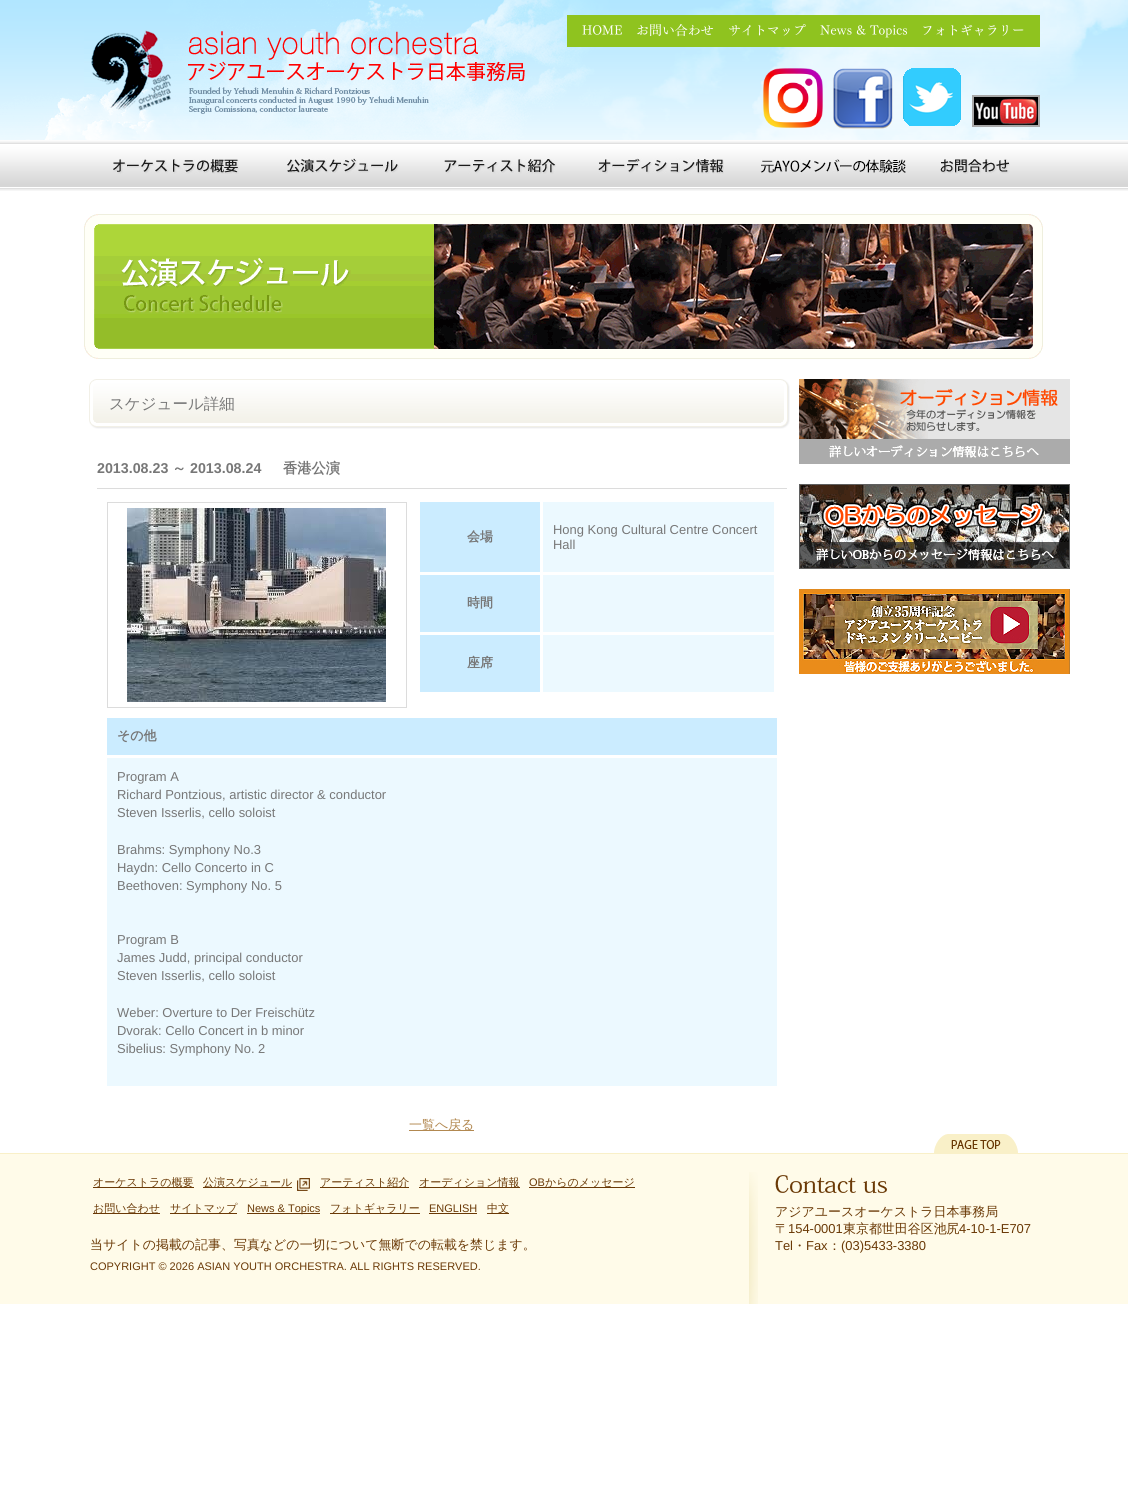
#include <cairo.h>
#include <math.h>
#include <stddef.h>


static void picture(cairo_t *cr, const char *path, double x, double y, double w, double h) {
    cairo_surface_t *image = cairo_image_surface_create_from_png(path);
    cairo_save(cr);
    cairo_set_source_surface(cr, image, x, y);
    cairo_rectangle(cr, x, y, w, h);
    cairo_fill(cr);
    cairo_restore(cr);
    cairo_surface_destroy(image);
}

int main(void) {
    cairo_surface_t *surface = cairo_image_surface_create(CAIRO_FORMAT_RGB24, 1128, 1487);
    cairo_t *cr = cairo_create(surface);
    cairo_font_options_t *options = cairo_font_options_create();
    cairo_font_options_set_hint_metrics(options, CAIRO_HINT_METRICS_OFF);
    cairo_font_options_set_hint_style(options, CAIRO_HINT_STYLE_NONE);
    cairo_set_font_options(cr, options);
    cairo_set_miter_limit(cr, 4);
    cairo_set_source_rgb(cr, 1, 1, 1);
    cairo_paint(cr);
    picture(cr, "img1.png", 0, 0, 1128, 140);
    picture(cr, "img2.png", 84, 30, 444, 90);
    cairo_set_source_rgb(cr, 0.561, 0.765, 0.122);
    cairo_rectangle(cr, 567, 15, 473, 32);
    cairo_fill(cr);
    cairo_select_font_face(cr, "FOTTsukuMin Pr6 Medium", CAIRO_FONT_SLANT_NORMAL, CAIRO_FONT_WEIGHT_NORMAL);
    cairo_set_font_size(cr, 12.95);
    cairo_set_source_rgb(cr, 1, 1, 1);
    cairo_move_to(cr, 582, 35);
    cairo_show_text(cr, "HOME");
    cairo_move_to(cr, 636, 35);
    cairo_show_text(cr, "お問い合わせ");
    cairo_move_to(cr, 728, 35);
    cairo_show_text(cr, "サイトマップ");
    cairo_move_to(cr, 820, 35);
    cairo_show_text(cr, "News & Topics");
    cairo_move_to(cr, 921, 35);
    cairo_show_text(cr, "フォトギャラリー");
    picture(cr, "img3.png", 763, 68, 60, 60);
    picture(cr, "img4.png", 833, 68, 60, 61);
    picture(cr, "img5.png", 903, 68, 58, 58);
    picture(cr, "img6.png", 974, 97, 64, 28);
    cairo_rectangle(cr, 973, 96, 66, 30);
    cairo_set_source_rgb(cr, 0.659, 0.659, 0.659);
    cairo_stroke(cr);
    picture(cr, "img7.png", 0, 140, 1128, 51);
    picture(cr, "img8.png", 113, 159, 126, 15);
    picture(cr, "img9.png", 287, 158, 112, 15);
    picture(cr, "img10.png", 444, 159, 112, 15);
    picture(cr, "img11.png", 598, 158, 126, 16);
    picture(cr, "img12.png", 760, 159, 146, 14);
    picture(cr, "img13.png", 940, 159, 70, 15);
    picture(cr, "img14.png", 84, 214, 959, 145);
    picture(cr, "img15.png", 89, 379, 701, 50);
    cairo_select_font_face(cr, "WenQuanYi Zen Hei Medium", CAIRO_FONT_SLANT_NORMAL, CAIRO_FONT_WEIGHT_NORMAL);
    cairo_set_font_size(cr, 15.5);
    cairo_set_source_rgb(cr, 0.467, 0.467, 0.467);
    cairo_move_to(cr, 109, 409);
    cairo_show_text(cr, "スケジュール詳細");
    cairo_set_source_rgb(cr, 0.863, 0.863, 0.863);
    cairo_rectangle(cr, 97, 488, 690, 1);
    cairo_fill(cr);
    cairo_select_font_face(cr, "Liberation Sans", CAIRO_FONT_SLANT_NORMAL, CAIRO_FONT_WEIGHT_BOLD);
    cairo_set_font_size(cr, 14.25);
    cairo_set_source_rgb(cr, 0.467, 0.467, 0.467);
    cairo_move_to(cr, 97, 473);
    cairo_show_text(cr, "2013.08.23");
    cairo_select_font_face(cr, "WenQuanYi Zen Hei", CAIRO_FONT_SLANT_NORMAL, CAIRO_FONT_WEIGHT_BOLD);
    cairo_move_to(cr, 172, 473);
    cairo_show_text(cr, "～");
    cairo_select_font_face(cr, "Liberation Sans", CAIRO_FONT_SLANT_NORMAL, CAIRO_FONT_WEIGHT_BOLD);
    cairo_move_to(cr, 190, 473);
    cairo_show_text(cr, "2013.08.24");
    cairo_select_font_face(cr, "WenQuanYi Zen Hei", CAIRO_FONT_SLANT_NORMAL, CAIRO_FONT_WEIGHT_BOLD);
    cairo_move_to(cr, 283, 473);
    cairo_show_text(cr, "香港公演");
    cairo_rectangle(cr, 107.5, 502.5, 299, 205);
    cairo_set_source_rgb(cr, 0.863, 0.863, 0.863);
    cairo_set_line_width(cr, 1);
    cairo_stroke(cr);
    picture(cr, "img16.png", 127, 508, 259, 194);
    cairo_set_source_rgb(cr, 0.796, 0.925, 1);
    cairo_rectangle(cr, 420, 502, 120, 70);
    cairo_fill(cr);
    cairo_set_font_size(cr, 12.95);
    cairo_set_source_rgb(cr, 0.467, 0.467, 0.467);
    cairo_move_to(cr, 467, 541);
    cairo_show_text(cr, "会場");
    cairo_set_source_rgb(cr, 0.922, 0.973, 1);
    cairo_rectangle(cr, 543, 502, 231, 70);
    cairo_fill(cr);
    cairo_select_font_face(cr, "Liberation Sans", CAIRO_FONT_SLANT_NORMAL, CAIRO_FONT_WEIGHT_NORMAL);
    cairo_set_source_rgb(cr, 0.467, 0.467, 0.467);
    cairo_move_to(cr, 553, 534);
    cairo_show_text(cr, "Hong Kong Cultural Centre Concert");
    cairo_move_to(cr, 553, 549);
    cairo_show_text(cr, "Hall");
    cairo_set_source_rgb(cr, 0.796, 0.925, 1);
    cairo_rectangle(cr, 420, 575, 120, 57);
    cairo_fill(cr);
    cairo_select_font_face(cr, "WenQuanYi Zen Hei", CAIRO_FONT_SLANT_NORMAL, CAIRO_FONT_WEIGHT_BOLD);
    cairo_set_source_rgb(cr, 0.467, 0.467, 0.467);
    cairo_move_to(cr, 467, 607);
    cairo_show_text(cr, "時間");
    cairo_set_source_rgb(cr, 0.922, 0.973, 1);
    cairo_rectangle(cr, 543, 575, 231, 57);
    cairo_fill(cr);
    cairo_set_source_rgb(cr, 0.796, 0.925, 1);
    cairo_rectangle(cr, 420, 635, 120, 57);
    cairo_fill(cr);
    cairo_set_source_rgb(cr, 0.467, 0.467, 0.467);
    cairo_move_to(cr, 467, 667);
    cairo_show_text(cr, "座席");
    cairo_set_source_rgb(cr, 0.922, 0.973, 1);
    cairo_rectangle(cr, 543, 635, 231, 57);
    cairo_fill(cr);
    cairo_set_source_rgb(cr, 0.796, 0.925, 1);
    cairo_rectangle(cr, 107, 718, 670, 37);
    cairo_fill(cr);
    cairo_set_source_rgb(cr, 0.467, 0.467, 0.467);
    cairo_move_to(cr, 117, 740);
    cairo_show_text(cr, "その他");
    cairo_set_source_rgb(cr, 0.922, 0.973, 1);
    cairo_rectangle(cr, 107, 758, 670, 328);
    cairo_fill(cr);
    cairo_select_font_face(cr, "Liberation Sans", CAIRO_FONT_SLANT_NORMAL, CAIRO_FONT_WEIGHT_NORMAL);
    cairo_set_source_rgb(cr, 0.467, 0.467, 0.467);
    cairo_move_to(cr, 117, 781);
    cairo_show_text(cr, "Program A");
    cairo_move_to(cr, 117, 799);
    cairo_show_text(cr, "Richard Pontzious, artistic director & conductor");
    cairo_move_to(cr, 117, 817);
    cairo_show_text(cr, "Steven Isserlis, cello soloist");
    cairo_move_to(cr, 117, 854);
    cairo_show_text(cr, "Brahms: Symphony No.3");
    cairo_move_to(cr, 117, 872);
    cairo_show_text(cr, "Haydn: Cello Concerto in C");
    cairo_move_to(cr, 117, 890);
    cairo_show_text(cr, "Beethoven: Symphony No. 5");
    cairo_move_to(cr, 117, 944);
    cairo_show_text(cr, "Program B");
    cairo_move_to(cr, 117, 962);
    cairo_show_text(cr, "James Judd, principal conductor");
    cairo_move_to(cr, 117, 980);
    cairo_show_text(cr, "Steven Isserlis, cello soloist");
    cairo_move_to(cr, 117, 1017);
    cairo_show_text(cr, "Weber: Overture to Der Freischütz");
    cairo_move_to(cr, 117, 1035);
    cairo_show_text(cr, "Dvorak: Cello Concert in b minor");
    cairo_move_to(cr, 117, 1053);
    cairo_show_text(cr, "Sibelius: Symphony No. 2");
    cairo_set_source_rgb(cr, 0.698, 0.533, 0.314);
    cairo_rectangle(cr, 409, 1130, 65, 1);
    cairo_fill(cr);
    cairo_select_font_face(cr, "WenQuanYi Zen Hei Medium", CAIRO_FONT_SLANT_NORMAL, CAIRO_FONT_WEIGHT_NORMAL);
    cairo_move_to(cr, 409, 1129);
    cairo_show_text(cr, "一覧へ戻る");
    picture(cr, "img17.png", 799, 379, 271, 85);
    picture(cr, "img18.png", 799, 484, 271, 85);
    picture(cr, "img19.png", 799, 589, 271, 85);
    picture(cr, "img20.png", 934, 1134, 84, 19);
    cairo_set_source_rgb(cr, 1, 0.984, 0.914);
    cairo_rectangle(cr, 0, 1154, 1128, 150);
    cairo_fill(cr);
    cairo_set_source_rgb(cr, 0.976, 0.941, 0.784);
    cairo_rectangle(cr, 0, 1153, 1128, 1);
    cairo_fill(cr);
    cairo_set_source_rgb(cr, 0.416, 0.224, 0.024);
    cairo_rectangle(cr, 93, 1187, 101, 1);
    cairo_fill(cr);
    cairo_set_font_size(cr, 11);
    cairo_move_to(cr, 93, 1186);
    cairo_show_text(cr, "オーケストラの概要");
    cairo_rectangle(cr, 203, 1187, 89, 1);
    cairo_fill(cr);
    cairo_move_to(cr, 203, 1186);
    cairo_show_text(cr, "公演スケジュール");
    picture(cr, "img21.png", 297, 1178, 13, 13);
    cairo_rectangle(cr, 320, 1187, 89, 1);
    cairo_fill(cr);
    cairo_move_to(cr, 320, 1186);
    cairo_show_text(cr, "アーティスト紹介");
    cairo_rectangle(cr, 419, 1187, 101, 1);
    cairo_fill(cr);
    cairo_move_to(cr, 419, 1186);
    cairo_show_text(cr, "オーディション情報");
    cairo_select_font_face(cr, "Liberation Sans", CAIRO_FONT_SLANT_NORMAL, CAIRO_FONT_WEIGHT_NORMAL);
    cairo_move_to(cr, 529, 1186);
    cairo_show_text(cr, "OB");
    cairo_rectangle(cr, 529, 1187, 106, 1);
    cairo_fill(cr);
    cairo_select_font_face(cr, "WenQuanYi Zen Hei Medium", CAIRO_FONT_SLANT_NORMAL, CAIRO_FONT_WEIGHT_NORMAL);
    cairo_move_to(cr, 545, 1186);
    cairo_show_text(cr, "からのメッセージ");
    cairo_rectangle(cr, 93, 1213, 67, 1);
    cairo_fill(cr);
    cairo_move_to(cr, 93, 1212);
    cairo_show_text(cr, "お問い合わせ");
    cairo_rectangle(cr, 170, 1213, 67, 1);
    cairo_fill(cr);
    cairo_move_to(cr, 170, 1212);
    cairo_show_text(cr, "サイトマップ");
    cairo_rectangle(cr, 247, 1213, 73, 1);
    cairo_fill(cr);
    cairo_select_font_face(cr, "Liberation Sans", CAIRO_FONT_SLANT_NORMAL, CAIRO_FONT_WEIGHT_NORMAL);
    cairo_move_to(cr, 247, 1212);
    cairo_show_text(cr, "News & Topics");
    cairo_rectangle(cr, 330, 1213, 90, 1);
    cairo_fill(cr);
    cairo_select_font_face(cr, "WenQuanYi Zen Hei Medium", CAIRO_FONT_SLANT_NORMAL, CAIRO_FONT_WEIGHT_NORMAL);
    cairo_move_to(cr, 330, 1212);
    cairo_show_text(cr, "フォトギャラリー");
    cairo_select_font_face(cr, "Liberation Sans", CAIRO_FONT_SLANT_NORMAL, CAIRO_FONT_WEIGHT_NORMAL);
    cairo_move_to(cr, 429, 1212);
    cairo_show_text(cr, "ENGLISH");
    cairo_rectangle(cr, 429, 1213, 48, 1);
    cairo_fill(cr);
    cairo_rectangle(cr, 487, 1213, 22, 1);
    cairo_fill(cr);
    cairo_select_font_face(cr, "WenQuanYi Zen Hei Medium", CAIRO_FONT_SLANT_NORMAL, CAIRO_FONT_WEIGHT_NORMAL);
    cairo_move_to(cr, 487, 1212);
    cairo_show_text(cr, "中文");
    cairo_set_font_size(cr, 12.95);
    cairo_move_to(cr, 90, 1249);
    cairo_show_text(cr, "当サイトの掲載の記事、写真などの一切について無断での転載を禁じます。");
    cairo_select_font_face(cr, "Liberation Sans", CAIRO_FONT_SLANT_NORMAL, CAIRO_FONT_WEIGHT_NORMAL);
    cairo_set_font_size(cr, 11);
    cairo_move_to(cr, 90, 1270);
    cairo_show_text(cr, "COPYRIGHT © 2026 ASIAN YOUTH ORCHESTRA. ALL RIGHTS RESERVED.");
    picture(cr, "img22.png", 749, 1172, 9, 132);
    picture(cr, "img23.png", 775, 1175, 112, 19);
    cairo_select_font_face(cr, "WenQuanYi Zen Hei Medium", CAIRO_FONT_SLANT_NORMAL, CAIRO_FONT_WEIGHT_NORMAL);
    cairo_set_font_size(cr, 12.95);
    cairo_move_to(cr, 775, 1216);
    cairo_show_text(cr, "アジアユースオーケストラ日本事務局");
    cairo_move_to(cr, 775, 1233);
    cairo_show_text(cr, "〒");
    cairo_select_font_face(cr, "Liberation Sans", CAIRO_FONT_SLANT_NORMAL, CAIRO_FONT_WEIGHT_NORMAL);
    cairo_move_to(cr, 788, 1233);
    cairo_show_text(cr, "154-0001");
    cairo_select_font_face(cr, "WenQuanYi Zen Hei Medium", CAIRO_FONT_SLANT_NORMAL, CAIRO_FONT_WEIGHT_NORMAL);
    cairo_move_to(cr, 843, 1233);
    cairo_show_text(cr, "東京都世田谷区池尻");
    cairo_select_font_face(cr, "Liberation Sans", CAIRO_FONT_SLANT_NORMAL, CAIRO_FONT_WEIGHT_NORMAL);
    cairo_move_to(cr, 959, 1233);
    cairo_show_text(cr, "4-10-1-E707");
    cairo_move_to(cr, 775, 1250);
    cairo_show_text(cr, "Tel");
    cairo_select_font_face(cr, "WenQuanYi Zen Hei Medium", CAIRO_FONT_SLANT_NORMAL, CAIRO_FONT_WEIGHT_NORMAL);
    cairo_move_to(cr, 793, 1250);
    cairo_show_text(cr, "・");
    cairo_select_font_face(cr, "Liberation Sans", CAIRO_FONT_SLANT_NORMAL, CAIRO_FONT_WEIGHT_NORMAL);
    cairo_move_to(cr, 806, 1250);
    cairo_show_text(cr, "Fax");
    cairo_select_font_face(cr, "WenQuanYi Zen Hei Medium", CAIRO_FONT_SLANT_NORMAL, CAIRO_FONT_WEIGHT_NORMAL);
    cairo_move_to(cr, 828, 1250);
    cairo_show_text(cr, "：");
    cairo_select_font_face(cr, "Liberation Sans", CAIRO_FONT_SLANT_NORMAL, CAIRO_FONT_WEIGHT_NORMAL);
    cairo_move_to(cr, 841, 1250);
    cairo_show_text(cr, "(03)5433-3380");
    cairo_surface_write_to_png(surface, "page.png");
    cairo_font_options_destroy(options);
    cairo_destroy(cr);
    cairo_surface_destroy(surface);
    return 0;
}
